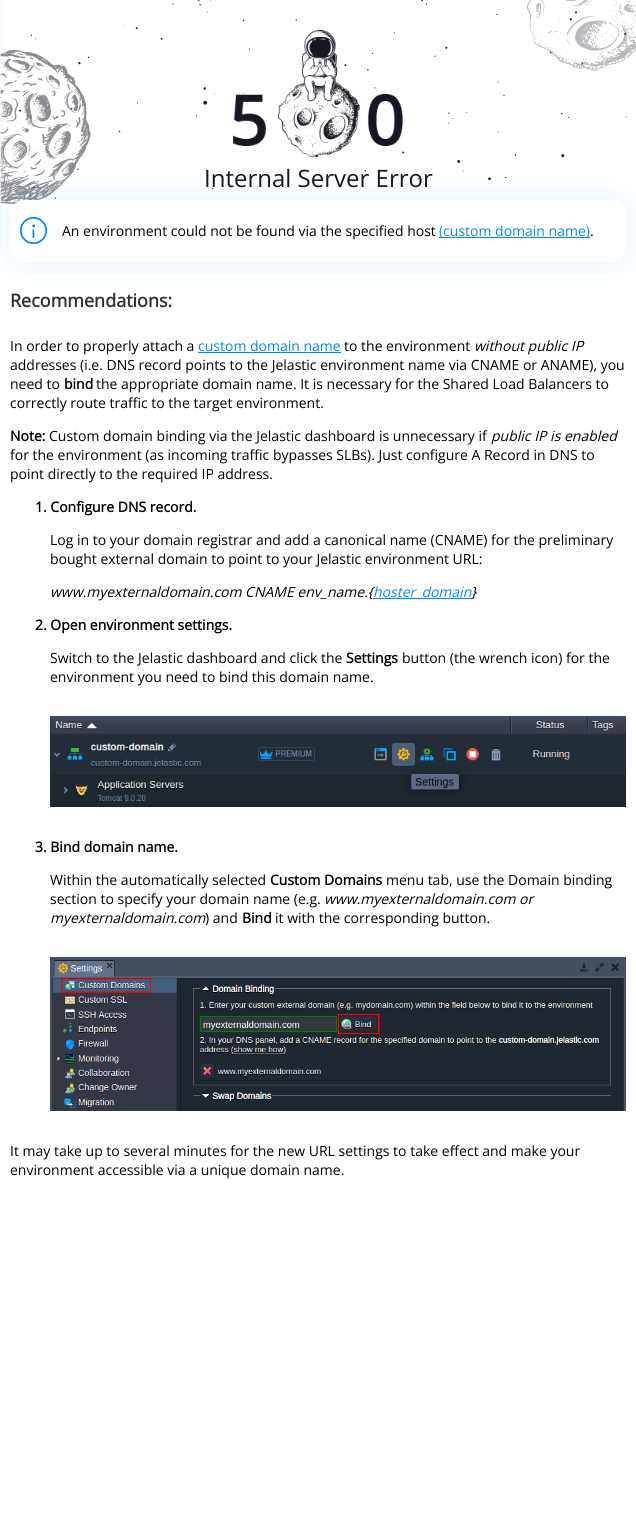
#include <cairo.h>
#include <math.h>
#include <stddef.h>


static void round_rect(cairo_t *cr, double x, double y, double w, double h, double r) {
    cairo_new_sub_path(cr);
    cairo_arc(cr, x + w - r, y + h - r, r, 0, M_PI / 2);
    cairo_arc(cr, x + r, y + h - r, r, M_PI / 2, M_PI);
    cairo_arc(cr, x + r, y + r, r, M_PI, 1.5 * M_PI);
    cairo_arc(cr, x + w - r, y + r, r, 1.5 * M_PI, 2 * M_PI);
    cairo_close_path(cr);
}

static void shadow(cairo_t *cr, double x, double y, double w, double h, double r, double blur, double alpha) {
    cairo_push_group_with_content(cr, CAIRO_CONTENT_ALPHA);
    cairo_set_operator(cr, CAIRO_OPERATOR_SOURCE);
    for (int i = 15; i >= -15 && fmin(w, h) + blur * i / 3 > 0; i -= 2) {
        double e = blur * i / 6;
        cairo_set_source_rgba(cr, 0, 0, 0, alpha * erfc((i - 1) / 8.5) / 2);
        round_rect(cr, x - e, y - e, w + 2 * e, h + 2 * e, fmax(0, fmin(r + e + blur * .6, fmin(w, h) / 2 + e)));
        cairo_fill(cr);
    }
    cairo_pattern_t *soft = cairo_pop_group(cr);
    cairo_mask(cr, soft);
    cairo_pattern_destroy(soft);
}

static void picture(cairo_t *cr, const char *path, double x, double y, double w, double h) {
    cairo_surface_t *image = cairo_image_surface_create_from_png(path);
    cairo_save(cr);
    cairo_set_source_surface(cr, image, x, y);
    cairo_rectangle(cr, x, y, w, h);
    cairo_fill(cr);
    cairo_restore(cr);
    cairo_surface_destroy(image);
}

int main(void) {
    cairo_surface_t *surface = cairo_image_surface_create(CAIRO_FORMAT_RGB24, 636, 1515);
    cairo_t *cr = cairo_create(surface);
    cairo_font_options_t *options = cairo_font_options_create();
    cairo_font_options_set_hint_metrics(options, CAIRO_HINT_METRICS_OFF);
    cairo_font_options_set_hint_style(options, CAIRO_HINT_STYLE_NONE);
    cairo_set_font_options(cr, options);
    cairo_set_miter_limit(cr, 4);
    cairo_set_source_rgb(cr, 1, 1, 1);
    cairo_paint(cr);
    picture(cr, "img1.png", 0, 0, 636, 248);
    cairo_set_source_rgb(cr, 0, 0.518, 0.961);
    shadow(cr, 10, 200, 616, 62, 15, 15, 0.1);
    picture(cr, "img2.png", 233, 30, 170, 127);
    cairo_select_font_face(cr, "Open Sans", CAIRO_FONT_SLANT_NORMAL, CAIRO_FONT_WEIGHT_NORMAL);
    cairo_set_font_size(cr, 24);
    cairo_set_source_rgb(cr, 0.09, 0.09, 0.137);
    cairo_move_to(cr, 204, 187);
    cairo_show_text(cr, "Internal Server Error");
    cairo_set_source_rgb(cr, 1, 1, 1);
    round_rect(cr, 10, 200, 616, 62, 15);
    cairo_fill(cr);
    picture(cr, "img3.png", 20, 217, 27, 27);
    cairo_set_font_size(cr, 14);
    cairo_set_source_rgb(cr, 0, 0, 0);
    cairo_move_to(cr, 62, 236);
    cairo_show_text(cr, "An environment could not be found via the specified host");
    cairo_set_source_rgb(cr, 0, 0.533, 0.984);
    cairo_rectangle(cr, 439, 237, 151, 1);
    cairo_fill(cr);
    cairo_move_to(cr, 439, 236);
    cairo_show_text(cr, "(custom domain name)");
    cairo_set_source_rgb(cr, 0, 0, 0);
    cairo_move_to(cr, 590, 236);
    cairo_show_text(cr, ".");
    cairo_select_font_face(cr, "Open Sans", CAIRO_FONT_SLANT_NORMAL, CAIRO_FONT_WEIGHT_BOLD);
    cairo_set_font_size(cr, 18);
    cairo_set_source_rgb(cr, 0.188, 0.188, 0.188);
    cairo_move_to(cr, 10, 307);
    cairo_show_text(cr, "Recommendations:");
    cairo_select_font_face(cr, "Open Sans", CAIRO_FONT_SLANT_NORMAL, CAIRO_FONT_WEIGHT_NORMAL);
    cairo_set_font_size(cr, 14);
    cairo_set_source_rgb(cr, 0, 0, 0);
    cairo_move_to(cr, 10, 351);
    cairo_show_text(cr, "In order to properly attach a");
    cairo_set_source_rgb(cr, 0, 0.533, 0.984);
    cairo_move_to(cr, 198, 351);
    cairo_show_text(cr, "custom domain name");
    cairo_rectangle(cr, 198, 352, 143, 1);
    cairo_fill(cr);
    cairo_set_source_rgb(cr, 0, 0, 0);
    cairo_move_to(cr, 344, 351);
    cairo_show_text(cr, "to the environment");
    cairo_select_font_face(cr, "Open Sans", CAIRO_FONT_SLANT_ITALIC, CAIRO_FONT_WEIGHT_NORMAL);
    cairo_move_to(cr, 474, 351);
    cairo_show_text(cr, "without public IP");
    cairo_select_font_face(cr, "Open Sans", CAIRO_FONT_SLANT_NORMAL, CAIRO_FONT_WEIGHT_NORMAL);
    cairo_move_to(cr, 10, 370);
    cairo_show_text(cr, "addresses (i.e. DNS record points to the Jelastic environment name via CNAME or ANAME), you");
    cairo_move_to(cr, 10, 389);
    cairo_show_text(cr, "need to");
    cairo_select_font_face(cr, "Open Sans", CAIRO_FONT_SLANT_NORMAL, CAIRO_FONT_WEIGHT_BOLD);
    cairo_move_to(cr, 64, 389);
    cairo_show_text(cr, "bind");
    cairo_select_font_face(cr, "Open Sans", CAIRO_FONT_SLANT_NORMAL, CAIRO_FONT_WEIGHT_NORMAL);
    cairo_move_to(cr, 96, 389);
    cairo_show_text(cr, "the appropriate domain name. It is necessary for the Shared Load Balancers to");
    cairo_move_to(cr, 10, 408);
    cairo_show_text(cr, "correctly route traffic to the target environment.");
    cairo_select_font_face(cr, "Open Sans", CAIRO_FONT_SLANT_NORMAL, CAIRO_FONT_WEIGHT_BOLD);
    cairo_move_to(cr, 10, 441);
    cairo_show_text(cr, "Note:");
    cairo_select_font_face(cr, "Open Sans", CAIRO_FONT_SLANT_NORMAL, CAIRO_FONT_WEIGHT_NORMAL);
    cairo_move_to(cr, 49, 441);
    cairo_show_text(cr, "Custom domain binding via the Jelastic dashboard is unnecessary if");
    cairo_select_font_face(cr, "Open Sans", CAIRO_FONT_SLANT_ITALIC, CAIRO_FONT_WEIGHT_NORMAL);
    cairo_move_to(cr, 491, 441);
    cairo_show_text(cr, "public IP is enabled");
    cairo_select_font_face(cr, "Open Sans", CAIRO_FONT_SLANT_NORMAL, CAIRO_FONT_WEIGHT_NORMAL);
    cairo_move_to(cr, 10, 460);
    cairo_show_text(cr, "for the environment (as incoming traffic bypasses SLBs). Just configure A Record in DNS to");
    cairo_move_to(cr, 10, 479);
    cairo_show_text(cr, "point directly to the required IP address.");
    cairo_select_font_face(cr, "Open Sans", CAIRO_FONT_SLANT_NORMAL, CAIRO_FONT_WEIGHT_BOLD);
    cairo_move_to(cr, 35, 512);
    cairo_show_text(cr, "1. Configure DNS record.");
    cairo_select_font_face(cr, "Open Sans", CAIRO_FONT_SLANT_NORMAL, CAIRO_FONT_WEIGHT_NORMAL);
    cairo_move_to(cr, 50, 545);
    cairo_show_text(cr, "Log in to your domain registrar and add a canonical name (CNAME) for the preliminary");
    cairo_move_to(cr, 50, 564);
    cairo_show_text(cr, "bought external domain to point to your Jelastic environment URL:");
    cairo_select_font_face(cr, "Open Sans", CAIRO_FONT_SLANT_ITALIC, CAIRO_FONT_WEIGHT_NORMAL);
    cairo_move_to(cr, 50, 597);
    cairo_show_text(cr, "www.myexternaldomain.com CNAME env_name.{");
    cairo_set_source_rgb(cr, 0, 0.533, 0.984);
    cairo_rectangle(cr, 373, 598, 98, 1);
    cairo_fill(cr);
    cairo_move_to(cr, 373, 597);
    cairo_show_text(cr, "hoster_domain");
    cairo_set_source_rgb(cr, 0, 0, 0);
    cairo_move_to(cr, 471, 597);
    cairo_show_text(cr, "}");
    cairo_select_font_face(cr, "Open Sans", CAIRO_FONT_SLANT_NORMAL, CAIRO_FONT_WEIGHT_BOLD);
    cairo_move_to(cr, 35, 630);
    cairo_show_text(cr, "2. Open environment settings.");
    cairo_select_font_face(cr, "Open Sans", CAIRO_FONT_SLANT_NORMAL, CAIRO_FONT_WEIGHT_NORMAL);
    cairo_move_to(cr, 50, 663);
    cairo_show_text(cr, "Switch to the Jelastic dashboard and click the");
    cairo_select_font_face(cr, "Open Sans", CAIRO_FONT_SLANT_NORMAL, CAIRO_FONT_WEIGHT_BOLD);
    cairo_move_to(cr, 346, 663);
    cairo_show_text(cr, "Settings");
    cairo_select_font_face(cr, "Open Sans", CAIRO_FONT_SLANT_NORMAL, CAIRO_FONT_WEIGHT_NORMAL);
    cairo_move_to(cr, 402, 663);
    cairo_show_text(cr, "button (the wrench icon) for the");
    cairo_move_to(cr, 50, 682);
    cairo_show_text(cr, "environment you need to bind this domain name.");
    picture(cr, "img4.png", 50, 716, 576, 91);
    cairo_select_font_face(cr, "Open Sans", CAIRO_FONT_SLANT_NORMAL, CAIRO_FONT_WEIGHT_BOLD);
    cairo_move_to(cr, 35, 852);
    cairo_show_text(cr, "3. Bind domain name.");
    cairo_select_font_face(cr, "Open Sans", CAIRO_FONT_SLANT_NORMAL, CAIRO_FONT_WEIGHT_NORMAL);
    cairo_move_to(cr, 50, 885);
    cairo_show_text(cr, "Within the automatically selected");
    cairo_select_font_face(cr, "Open Sans", CAIRO_FONT_SLANT_NORMAL, CAIRO_FONT_WEIGHT_BOLD);
    cairo_move_to(cr, 270, 885);
    cairo_show_text(cr, "Custom Domains");
    cairo_select_font_face(cr, "Open Sans", CAIRO_FONT_SLANT_NORMAL, CAIRO_FONT_WEIGHT_NORMAL);
    cairo_move_to(cr, 386, 885);
    cairo_show_text(cr, "menu tab, use the Domain binding");
    cairo_move_to(cr, 50, 904);
    cairo_show_text(cr, "section to specify your domain name (e.g.");
    cairo_select_font_face(cr, "Open Sans", CAIRO_FONT_SLANT_ITALIC, CAIRO_FONT_WEIGHT_NORMAL);
    cairo_move_to(cr, 324, 904);
    cairo_show_text(cr, "www.myexternaldomain.com or");
    cairo_move_to(cr, 50, 923);
    cairo_show_text(cr, "myexternaldomain.com");
    cairo_select_font_face(cr, "Open Sans", CAIRO_FONT_SLANT_NORMAL, CAIRO_FONT_WEIGHT_NORMAL);
    cairo_move_to(cr, 205, 923);
    cairo_show_text(cr, ") and");
    cairo_select_font_face(cr, "Open Sans", CAIRO_FONT_SLANT_NORMAL, CAIRO_FONT_WEIGHT_BOLD);
    cairo_move_to(cr, 242, 923);
    cairo_show_text(cr, "Bind");
    cairo_select_font_face(cr, "Open Sans", CAIRO_FONT_SLANT_NORMAL, CAIRO_FONT_WEIGHT_NORMAL);
    cairo_move_to(cr, 275, 923);
    cairo_show_text(cr, "it with the corresponding button.");
    picture(cr, "img5.png", 50, 957, 576, 154);
    cairo_move_to(cr, 10, 1156);
    cairo_show_text(cr, "It may take up to several minutes for the new URL settings to take effect and make your");
    cairo_move_to(cr, 10, 1175);
    cairo_show_text(cr, "environment accessible via a unique domain name.");
    cairo_surface_write_to_png(surface, "page.png");
    cairo_font_options_destroy(options);
    cairo_destroy(cr);
    cairo_surface_destroy(surface);
    return 0;
}
